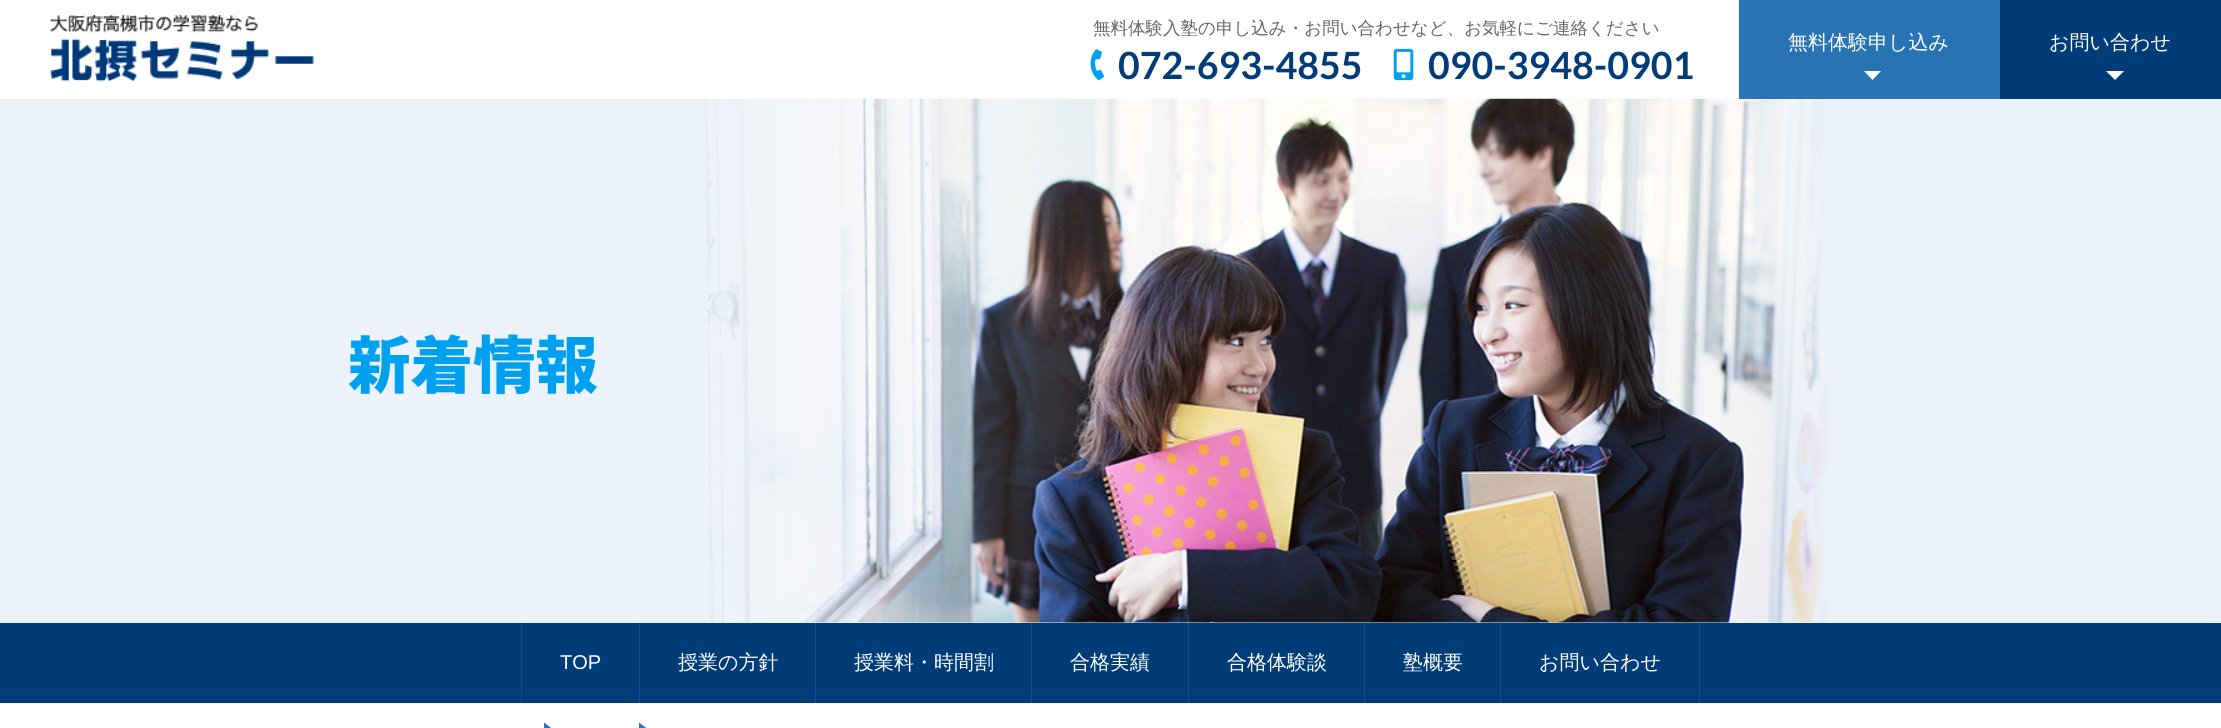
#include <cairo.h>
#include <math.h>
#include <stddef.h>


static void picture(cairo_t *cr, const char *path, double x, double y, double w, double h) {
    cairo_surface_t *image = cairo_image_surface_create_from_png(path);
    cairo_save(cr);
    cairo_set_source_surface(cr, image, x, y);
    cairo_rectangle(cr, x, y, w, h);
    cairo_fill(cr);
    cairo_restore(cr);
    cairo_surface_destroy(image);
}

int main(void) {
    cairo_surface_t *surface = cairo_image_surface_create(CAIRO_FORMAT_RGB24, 2221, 728);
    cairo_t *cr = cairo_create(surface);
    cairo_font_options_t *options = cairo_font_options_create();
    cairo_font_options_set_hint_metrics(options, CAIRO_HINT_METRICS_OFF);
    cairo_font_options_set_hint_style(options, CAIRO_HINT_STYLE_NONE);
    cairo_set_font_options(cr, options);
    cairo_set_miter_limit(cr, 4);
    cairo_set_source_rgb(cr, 1, 1, 1);
    cairo_paint(cr);
    picture(cr, "img1.png", 50, 15, 264, 67);
    cairo_select_font_face(cr, "WenQuanYi Zen Hei Medium", CAIRO_FONT_SLANT_NORMAL, CAIRO_FONT_WEIGHT_NORMAL);
    cairo_set_font_size(cr, 17.5);
    cairo_set_source_rgb(cr, 0.4, 0.4, 0.4);
    cairo_move_to(cr, 1093, 34);
    cairo_show_text(cr, "無料体験入塾の申し込み・お問い合わせなど、お気軽にご連絡ください");
    picture(cr, "img2.png", 1090, 49, 14, 32);
    cairo_select_font_face(cr, "Lato", CAIRO_FONT_SLANT_NORMAL, CAIRO_FONT_WEIGHT_BOLD);
    cairo_set_font_size(cr, 37.5);
    cairo_set_source_rgb(cr, 0, 0.235, 0.471);
    cairo_move_to(cr, 1118, 79);
    cairo_show_text(cr, "072-693-4855");
    picture(cr, "img3.png", 1393, 48, 21, 33);
    cairo_move_to(cr, 1428, 79);
    cairo_show_text(cr, "090-3948-0901");
    cairo_set_source_rgb(cr, 0.925, 0.949, 0.976);
    cairo_rectangle(cr, 0, 99, 2221, 524);
    cairo_fill(cr);
    picture(cr, "img4.png", 705, 98, 1125, 525);
    cairo_set_source_rgb(cr, 0.157, 0.451, 0.706);
    cairo_rectangle(cr, 1739, 0, 261, 99);
    cairo_fill(cr);
    cairo_select_font_face(cr, "WenQuanYi Zen Hei Medium", CAIRO_FONT_SLANT_NORMAL, CAIRO_FONT_WEIGHT_NORMAL);
    cairo_set_font_size(cr, 20);
    cairo_set_source_rgb(cr, 1, 1, 1);
    cairo_move_to(cr, 1788, 49);
    cairo_show_text(cr, "無料体験申し込み");
    cairo_new_path(cr);
    cairo_move_to(cr, 1864, 71);
    cairo_line_to(cr, 1881, 71);
    cairo_line_to(cr, 1872.5, 80);
    cairo_close_path(cr);
    cairo_fill(cr);
    cairo_set_source_rgb(cr, 0, 0.235, 0.471);
    cairo_rectangle(cr, 2000, 0, 221, 99);
    cairo_fill(cr);
    cairo_set_source_rgb(cr, 1, 1, 1);
    cairo_move_to(cr, 2049, 49);
    cairo_show_text(cr, "お問い合わせ");
    cairo_new_path(cr);
    cairo_move_to(cr, 2106, 71);
    cairo_line_to(cr, 2124, 71);
    cairo_line_to(cr, 2115, 80);
    cairo_close_path(cr);
    cairo_fill(cr);
    cairo_select_font_face(cr, "Noto Sans JP Black", CAIRO_FONT_SLANT_NORMAL, CAIRO_FONT_WEIGHT_NORMAL);
    cairo_set_font_size(cr, 62.5);
    cairo_set_source_rgb(cr, 0, 0.627, 0.941);
    cairo_move_to(cr, 348, 388);
    cairo_show_text(cr, "新着情報");
    cairo_set_source_rgb(cr, 0, 0.235, 0.471);
    cairo_rectangle(cr, 0, 623, 2221, 80);
    cairo_fill(cr);
    cairo_set_source_rgb(cr, 0.059, 0.314, 0.569);
    cairo_rectangle(cr, 521, 623, 1, 80);
    cairo_fill(cr);
    cairo_select_font_face(cr, "Liberation Sans", CAIRO_FONT_SLANT_NORMAL, CAIRO_FONT_WEIGHT_NORMAL);
    cairo_set_font_size(cr, 20);
    cairo_set_source_rgb(cr, 1, 1, 1);
    cairo_move_to(cr, 560, 669);
    cairo_show_text(cr, "TOP");
    cairo_set_source_rgb(cr, 0.059, 0.314, 0.569);
    cairo_rectangle(cr, 639, 623, 1, 80);
    cairo_fill(cr);
    cairo_select_font_face(cr, "WenQuanYi Zen Hei Medium", CAIRO_FONT_SLANT_NORMAL, CAIRO_FONT_WEIGHT_NORMAL);
    cairo_set_source_rgb(cr, 1, 1, 1);
    cairo_move_to(cr, 678, 669);
    cairo_show_text(cr, "授業の方針");
    cairo_set_source_rgb(cr, 0.059, 0.314, 0.569);
    cairo_rectangle(cr, 815, 623, 1, 80);
    cairo_fill(cr);
    cairo_set_source_rgb(cr, 1, 1, 1);
    cairo_move_to(cr, 854, 669);
    cairo_show_text(cr, "授業料・時間割");
    cairo_set_source_rgb(cr, 0.059, 0.314, 0.569);
    cairo_rectangle(cr, 1031, 623, 1, 80);
    cairo_fill(cr);
    cairo_set_source_rgb(cr, 1, 1, 1);
    cairo_move_to(cr, 1070, 669);
    cairo_show_text(cr, "合格実績");
    cairo_set_source_rgb(cr, 0.059, 0.314, 0.569);
    cairo_rectangle(cr, 1188, 623, 1, 80);
    cairo_fill(cr);
    cairo_set_source_rgb(cr, 1, 1, 1);
    cairo_move_to(cr, 1227, 669);
    cairo_show_text(cr, "合格体験談");
    cairo_set_source_rgb(cr, 0.059, 0.314, 0.569);
    cairo_rectangle(cr, 1364, 623, 1, 80);
    cairo_fill(cr);
    cairo_set_source_rgb(cr, 1, 1, 1);
    cairo_move_to(cr, 1403, 669);
    cairo_show_text(cr, "塾概要");
    cairo_set_source_rgb(cr, 0.059, 0.314, 0.569);
    cairo_rectangle(cr, 1699, 623, 1, 80);
    cairo_fill(cr);
    cairo_rectangle(cr, 1500, 623, 1, 80);
    cairo_fill(cr);
    cairo_set_source_rgb(cr, 1, 1, 1);
    cairo_move_to(cr, 1539, 669);
    cairo_show_text(cr, "お問い合わせ");
    cairo_set_source_rgb(cr, 0.157, 0.451, 0.706);
    cairo_new_path(cr);
    cairo_move_to(cr, 544, 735);
    cairo_line_to(cr, 544, 722.5);
    cairo_line_to(cr, 552.5, 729);
    cairo_close_path(cr);
    cairo_fill(cr);
    cairo_new_path(cr);
    cairo_move_to(cr, 639, 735);
    cairo_line_to(cr, 639, 722.5);
    cairo_line_to(cr, 647.5, 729);
    cairo_close_path(cr);
    cairo_fill(cr);
    cairo_surface_write_to_png(surface, "page.png");
    cairo_font_options_destroy(options);
    cairo_destroy(cr);
    cairo_surface_destroy(surface);
    return 0;
}
